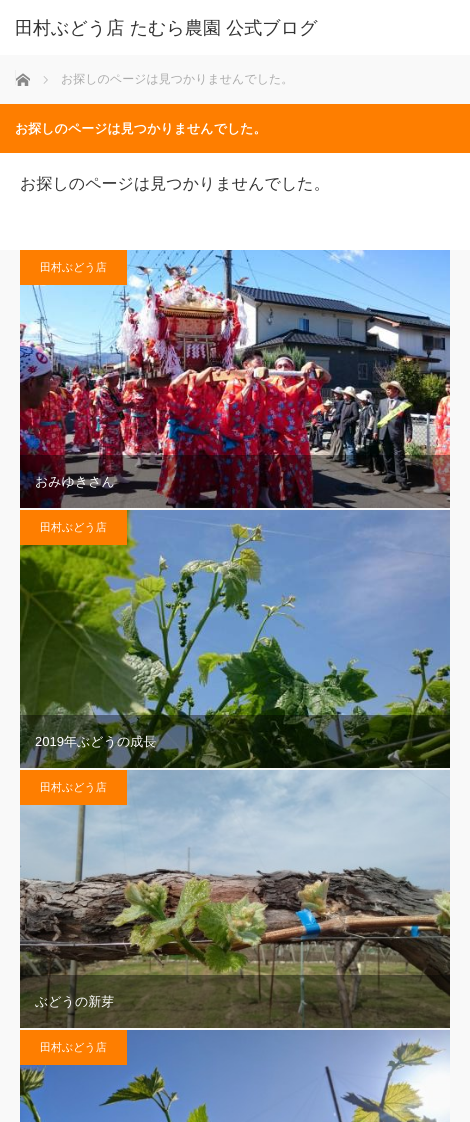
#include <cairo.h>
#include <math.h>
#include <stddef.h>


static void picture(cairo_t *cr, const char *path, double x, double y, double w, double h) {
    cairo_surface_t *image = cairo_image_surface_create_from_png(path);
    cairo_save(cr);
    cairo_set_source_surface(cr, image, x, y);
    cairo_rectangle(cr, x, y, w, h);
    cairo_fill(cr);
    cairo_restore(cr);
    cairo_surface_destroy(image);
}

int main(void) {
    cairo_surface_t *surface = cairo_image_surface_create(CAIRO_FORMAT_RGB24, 470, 1122);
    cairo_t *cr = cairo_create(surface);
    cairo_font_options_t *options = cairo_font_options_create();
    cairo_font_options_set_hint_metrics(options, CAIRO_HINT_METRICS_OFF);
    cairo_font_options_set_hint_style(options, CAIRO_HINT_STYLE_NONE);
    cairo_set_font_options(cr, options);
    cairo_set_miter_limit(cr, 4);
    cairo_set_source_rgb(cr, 0.973, 0.973, 0.973);
    cairo_paint(cr);
    cairo_set_source_rgb(cr, 1, 1, 1);
    cairo_rectangle(cr, 0, 0, 470, 55);
    cairo_fill(cr);
    cairo_select_font_face(cr, "WenQuanYi Zen Hei Medium", CAIRO_FONT_SLANT_NORMAL, CAIRO_FONT_WEIGHT_NORMAL);
    cairo_set_font_size(cr, 18);
    cairo_set_source_rgb(cr, 0.2, 0.2, 0.2);
    cairo_move_to(cr, 15, 34);
    cairo_show_text(cr, "田村ぶどう店 たむら農園 公式ブログ");
    cairo_set_source_rgb(cr, 0.933, 0.933, 0.933);
    cairo_rectangle(cr, 15, 70, 1, 15);
    cairo_fill(cr);
    picture(cr, "img1.png", 16, 73, 14, 13);
    picture(cr, "img2.png", 43, 76, 5, 8);
    cairo_set_font_size(cr, 12);
    cairo_set_source_rgb(cr, 0.667, 0.667, 0.667);
    cairo_move_to(cr, 61, 83);
    cairo_show_text(cr, "お探しのページは見つかりませんでした。");
    cairo_set_source_rgb(cr, 1, 1, 1);
    cairo_rectangle(cr, 0, 153, 470, 97);
    cairo_fill(cr);
    cairo_set_source_rgb(cr, 0.996, 0.494, 0);
    cairo_rectangle(cr, 0, 104, 470, 49);
    cairo_fill(cr);
    cairo_select_font_face(cr, "WenQuanYi Zen Hei", CAIRO_FONT_SLANT_NORMAL, CAIRO_FONT_WEIGHT_BOLD);
    cairo_set_font_size(cr, 13);
    cairo_set_source_rgb(cr, 1, 1, 1);
    cairo_move_to(cr, 15, 133);
    cairo_show_text(cr, "お探しのページは見つかりませんでした。");
    cairo_select_font_face(cr, "WenQuanYi Zen Hei Medium", CAIRO_FONT_SLANT_NORMAL, CAIRO_FONT_WEIGHT_NORMAL);
    cairo_set_font_size(cr, 16);
    cairo_set_source_rgb(cr, 0.2, 0.2, 0.2);
    cairo_move_to(cr, 20, 189);
    cairo_show_text(cr, "お探しのページは見つかりませんでした。");
    picture(cr, "img3.png", 20, 250, 430, 258);
    cairo_set_source_rgb(cr, 0.996, 0.494, 0);
    cairo_rectangle(cr, 20, 250, 107, 35);
    cairo_fill(cr);
    cairo_set_font_size(cr, 11);
    cairo_set_source_rgb(cr, 1, 1, 1);
    cairo_move_to(cr, 40, 271);
    cairo_show_text(cr, "田村ぶどう店");
    cairo_set_source_rgba(cr, 0, 0, 0, 0.4);
    cairo_rectangle(cr, 20, 455, 430, 53);
    cairo_fill(cr);
    cairo_set_font_size(cr, 13);
    cairo_set_source_rgb(cr, 1, 1, 1);
    cairo_move_to(cr, 35, 486);
    cairo_show_text(cr, "おみゆきさん");
    picture(cr, "img4.png", 20, 510, 430, 258);
    cairo_set_source_rgb(cr, 0.996, 0.494, 0);
    cairo_rectangle(cr, 20, 510, 107, 35);
    cairo_fill(cr);
    cairo_set_font_size(cr, 11);
    cairo_set_source_rgb(cr, 1, 1, 1);
    cairo_move_to(cr, 40, 531);
    cairo_show_text(cr, "田村ぶどう店");
    cairo_set_source_rgba(cr, 0, 0, 0, 0.4);
    cairo_rectangle(cr, 20, 715, 430, 53);
    cairo_fill(cr);
    cairo_select_font_face(cr, "Liberation Sans", CAIRO_FONT_SLANT_NORMAL, CAIRO_FONT_WEIGHT_NORMAL);
    cairo_set_font_size(cr, 13);
    cairo_set_source_rgb(cr, 1, 1, 1);
    cairo_move_to(cr, 35, 746);
    cairo_show_text(cr, "2019");
    cairo_select_font_face(cr, "WenQuanYi Zen Hei Medium", CAIRO_FONT_SLANT_NORMAL, CAIRO_FONT_WEIGHT_NORMAL);
    cairo_move_to(cr, 64, 746);
    cairo_show_text(cr, "年ぶどうの成長");
    picture(cr, "img5.png", 20, 770, 430, 258);
    cairo_set_source_rgb(cr, 0.996, 0.494, 0);
    cairo_rectangle(cr, 20, 770, 107, 35);
    cairo_fill(cr);
    cairo_set_font_size(cr, 11);
    cairo_set_source_rgb(cr, 1, 1, 1);
    cairo_move_to(cr, 40, 791);
    cairo_show_text(cr, "田村ぶどう店");
    cairo_set_source_rgba(cr, 0, 0, 0, 0.4);
    cairo_rectangle(cr, 20, 975, 430, 53);
    cairo_fill(cr);
    cairo_set_font_size(cr, 13);
    cairo_set_source_rgb(cr, 1, 1, 1);
    cairo_move_to(cr, 35, 1006);
    cairo_show_text(cr, "ぶどうの新芽");
    picture(cr, "img6.png", 20, 1030, 430, 92);
    cairo_set_source_rgb(cr, 0.996, 0.494, 0);
    cairo_rectangle(cr, 20, 1030, 107, 35);
    cairo_fill(cr);
    cairo_set_font_size(cr, 11);
    cairo_set_source_rgb(cr, 1, 1, 1);
    cairo_move_to(cr, 40, 1051);
    cairo_show_text(cr, "田村ぶどう店");
    cairo_surface_write_to_png(surface, "page.png");
    cairo_font_options_destroy(options);
    cairo_destroy(cr);
    cairo_surface_destroy(surface);
    return 0;
}
